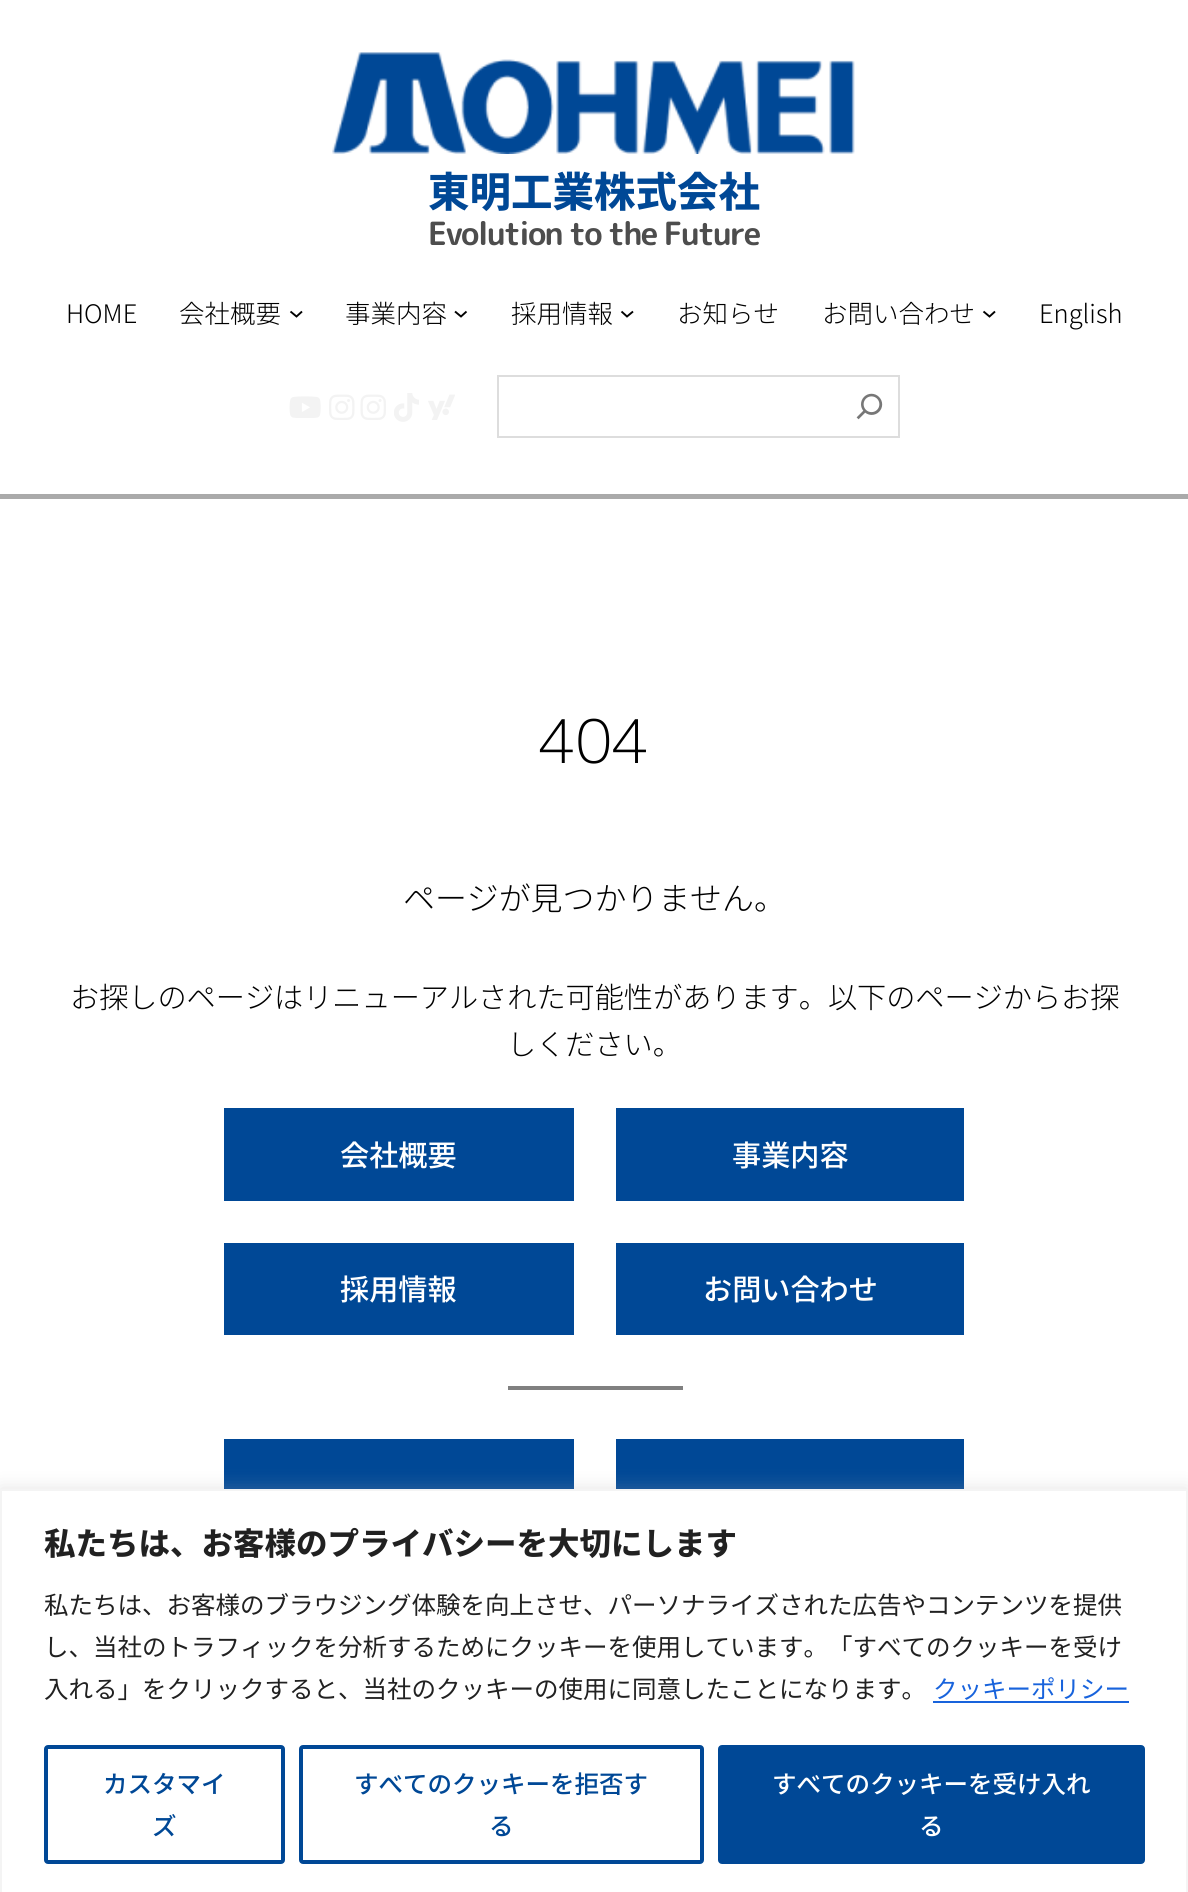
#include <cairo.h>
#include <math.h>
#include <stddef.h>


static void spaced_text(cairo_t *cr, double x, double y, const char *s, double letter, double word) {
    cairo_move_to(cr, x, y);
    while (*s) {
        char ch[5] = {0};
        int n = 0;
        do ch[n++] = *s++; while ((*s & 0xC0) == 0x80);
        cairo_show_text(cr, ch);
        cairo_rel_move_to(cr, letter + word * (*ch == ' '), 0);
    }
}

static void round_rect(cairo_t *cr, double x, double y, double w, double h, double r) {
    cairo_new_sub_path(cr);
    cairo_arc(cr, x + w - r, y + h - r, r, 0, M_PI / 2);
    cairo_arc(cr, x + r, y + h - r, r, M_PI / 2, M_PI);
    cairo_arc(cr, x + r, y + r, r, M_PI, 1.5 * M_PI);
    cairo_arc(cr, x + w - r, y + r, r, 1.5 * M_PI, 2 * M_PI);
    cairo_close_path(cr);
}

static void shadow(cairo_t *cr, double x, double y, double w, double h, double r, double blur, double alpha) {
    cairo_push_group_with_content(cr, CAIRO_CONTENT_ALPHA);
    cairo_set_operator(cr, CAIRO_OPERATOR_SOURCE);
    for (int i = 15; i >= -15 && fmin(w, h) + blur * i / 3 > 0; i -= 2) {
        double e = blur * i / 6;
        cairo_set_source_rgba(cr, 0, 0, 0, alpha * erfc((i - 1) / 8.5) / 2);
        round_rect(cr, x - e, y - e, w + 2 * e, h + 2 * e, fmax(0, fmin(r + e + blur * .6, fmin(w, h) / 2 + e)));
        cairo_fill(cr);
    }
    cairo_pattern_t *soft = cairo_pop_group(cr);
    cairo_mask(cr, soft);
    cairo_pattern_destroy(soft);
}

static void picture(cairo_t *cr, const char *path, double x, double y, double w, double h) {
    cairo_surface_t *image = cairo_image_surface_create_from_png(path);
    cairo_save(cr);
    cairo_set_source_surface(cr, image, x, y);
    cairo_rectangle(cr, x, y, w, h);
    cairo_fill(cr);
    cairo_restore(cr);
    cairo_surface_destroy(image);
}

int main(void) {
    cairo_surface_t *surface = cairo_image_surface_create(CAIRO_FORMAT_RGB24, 1188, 1892);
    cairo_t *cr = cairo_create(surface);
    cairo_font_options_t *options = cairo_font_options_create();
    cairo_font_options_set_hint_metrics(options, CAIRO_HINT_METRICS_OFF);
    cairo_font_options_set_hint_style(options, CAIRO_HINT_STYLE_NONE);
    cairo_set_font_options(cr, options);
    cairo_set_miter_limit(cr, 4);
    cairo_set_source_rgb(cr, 1, 1, 1);
    cairo_paint(cr);
    cairo_set_source_rgb(cr, 0.667, 0.667, 0.667);
    cairo_rectangle(cr, 0, 494, 1188, 5);
    cairo_fill(cr);
    picture(cr, "img1.png", 332, 52, 523, 102);
    cairo_select_font_face(cr, "Noto Sans JP ExtraBold", CAIRO_FONT_SLANT_NORMAL, CAIRO_FONT_WEIGHT_NORMAL);
    cairo_set_font_size(cr, 41.5);
    cairo_set_source_rgb(cr, 0, 0.282, 0.588);
    cairo_move_to(cr, 428, 207);
    cairo_show_text(cr, "東明工業株式会社");
    cairo_select_font_face(cr, "Rounded Mplus 1c Bold", CAIRO_FONT_SLANT_NORMAL, CAIRO_FONT_WEIGHT_BOLD);
    cairo_set_font_size(cr, 32);
    cairo_set_source_rgb(cr, 0.302, 0.302, 0.302);
    spaced_text(cr, 428, 245, "Evolution to the Future", -1.75, 0);
    cairo_select_font_face(cr, "Noto Sans JP Light", CAIRO_FONT_SLANT_NORMAL, CAIRO_FONT_WEIGHT_NORMAL);
    cairo_set_font_size(cr, 25.5);
    cairo_set_source_rgb(cr, 0, 0, 0);
    cairo_move_to(cr, 66, 323);
    cairo_show_text(cr, "HOME");
    cairo_move_to(cr, 179, 323);
    cairo_show_text(cr, "会社概要");
    cairo_new_path(cr);
    cairo_move_to(cr, 290.5, 311.5);
    cairo_line_to(cr, 296.5, 316.5);
    cairo_line_to(cr, 302, 311.5);
    cairo_set_line_width(cr, 1.9);
    cairo_stroke(cr);
    cairo_move_to(cr, 345, 323);
    cairo_show_text(cr, "事業内容");
    cairo_new_path(cr);
    cairo_move_to(cr, 455, 311.5);
    cairo_line_to(cr, 461, 316.5);
    cairo_line_to(cr, 466.5, 311.5);
    cairo_stroke(cr);
    cairo_move_to(cr, 511, 323);
    cairo_show_text(cr, "採用情報");
    cairo_new_path(cr);
    cairo_move_to(cr, 621.5, 311.5);
    cairo_line_to(cr, 627, 316.5);
    cairo_line_to(cr, 633, 311.5);
    cairo_stroke(cr);
    cairo_move_to(cr, 677, 323);
    cairo_show_text(cr, "お知らせ");
    cairo_move_to(cr, 822, 323);
    cairo_show_text(cr, "お問い合わせ");
    cairo_new_path(cr);
    cairo_move_to(cr, 983.5, 311.5);
    cairo_line_to(cr, 989.5, 316.5);
    cairo_line_to(cr, 995, 311.5);
    cairo_stroke(cr);
    cairo_move_to(cr, 1039, 323);
    cairo_show_text(cr, "English");
    picture(cr, "img2.png", 289, 396, 32, 22);
    picture(cr, "img3.png", 329, 394, 26, 26);
    picture(cr, "img4.png", 360, 394, 26, 26);
    picture(cr, "img5.png", 394, 393, 25, 29);
    picture(cr, "img6.png", 428, 394, 27, 26);
    cairo_rectangle(cr, 498, 376, 401, 61);
    cairo_set_source_rgb(cr, 0.867, 0.867, 0.867);
    cairo_set_line_width(cr, 2);
    cairo_stroke(cr);
    picture(cr, "img7.png", 856, 393, 27, 27);
    cairo_select_font_face(cr, "M PLUS 1p Light", CAIRO_FONT_SLANT_NORMAL, CAIRO_FONT_WEIGHT_NORMAL);
    cairo_set_font_size(cr, 60);
    cairo_set_source_rgb(cr, 0, 0, 0);
    cairo_move_to(cr, 539, 763);
    cairo_show_text(cr, "404");
    cairo_select_font_face(cr, "Noto Sans JP Light", CAIRO_FONT_SLANT_NORMAL, CAIRO_FONT_WEIGHT_NORMAL);
    cairo_set_font_size(cr, 31.9);
    cairo_move_to(cr, 403, 910);
    cairo_show_text(cr, "ページが見つかりません。");
    cairo_set_font_size(cr, 29.15);
    cairo_move_to(cr, 70, 1008);
    cairo_show_text(cr, "お探しのページはリニューアルされた可能性があります。以下のページからお探");
    cairo_move_to(cr, 507, 1055);
    cairo_show_text(cr, "しください。");
    cairo_set_source_rgb(cr, 0, 0.282, 0.588);
    cairo_rectangle(cr, 224, 1108, 350, 93);
    cairo_fill(cr);
    cairo_select_font_face(cr, "Noto Sans JP Medium", CAIRO_FONT_SLANT_NORMAL, CAIRO_FONT_WEIGHT_NORMAL);
    cairo_set_source_rgb(cr, 1, 1, 1);
    cairo_move_to(cr, 340, 1166);
    cairo_show_text(cr, "会社概要");
    cairo_set_source_rgb(cr, 0, 0.282, 0.588);
    cairo_rectangle(cr, 616, 1108, 348, 93);
    cairo_fill(cr);
    cairo_set_source_rgb(cr, 1, 1, 1);
    cairo_move_to(cr, 732, 1166);
    cairo_show_text(cr, "事業内容");
    cairo_set_source_rgb(cr, 0, 0.282, 0.588);
    cairo_rectangle(cr, 224, 1243, 350, 92);
    cairo_fill(cr);
    cairo_set_source_rgb(cr, 1, 1, 1);
    cairo_move_to(cr, 340, 1300);
    cairo_show_text(cr, "採用情報");
    cairo_set_source_rgb(cr, 0, 0.282, 0.588);
    cairo_rectangle(cr, 616, 1243, 348, 92);
    cairo_fill(cr);
    cairo_set_source_rgb(cr, 1, 1, 1);
    cairo_move_to(cr, 703, 1300);
    cairo_show_text(cr, "お問い合わせ");
    cairo_set_source_rgb(cr, 0.502, 0.502, 0.502);
    cairo_rectangle(cr, 508, 1386, 175, 4);
    cairo_fill(cr);
    cairo_set_source_rgb(cr, 0, 0.282, 0.588);
    cairo_rectangle(cr, 224, 1439, 350, 50);
    cairo_fill(cr);
    cairo_rectangle(cr, 616, 1439, 348, 50);
    cairo_fill(cr);
    cairo_set_source_rgb(cr, 0.675, 0.671, 0.671);
    shadow(cr, 0, 1488, 1188, 404, 0, 9, 0.3);
    cairo_set_source_rgb(cr, 1, 1, 1);
    cairo_rectangle(cr, 1, 1490, 1186, 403);
    cairo_fill_preserve(cr);
    cairo_set_source_rgb(cr, 0.957, 0.957, 0.957);
    cairo_stroke(cr);
    cairo_select_font_face(cr, "Noto Sans JP ExtraBold", CAIRO_FONT_SLANT_NORMAL, CAIRO_FONT_WEIGHT_NORMAL);
    cairo_set_font_size(cr, 31.5);
    cairo_set_source_rgb(cr, 0.129, 0.129, 0.129);
    cairo_move_to(cr, 44, 1555);
    cairo_show_text(cr, "私たちは、お客様のプライバシーを大切にします");
    cairo_select_font_face(cr, "Noto Sans JP", CAIRO_FONT_SLANT_NORMAL, CAIRO_FONT_WEIGHT_NORMAL);
    cairo_set_font_size(cr, 24.5);
    cairo_move_to(cr, 44, 1614);
    cairo_show_text(cr, "私たちは、お客様のブラウジング体験を向上させ、パーソナライズされた広告やコンテンツを提供");
    cairo_move_to(cr, 44, 1656);
    cairo_show_text(cr, "し、当社のトラフィックを分析するためにクッキーを使用しています。「すべてのクッキーを受け");
    cairo_move_to(cr, 44, 1698);
    cairo_show_text(cr, "入れる」をクリックすると、当社のクッキーの使用に同意したことになります。");
    cairo_set_source_rgb(cr, 0.094, 0.388, 0.863);
    cairo_move_to(cr, 933, 1698);
    cairo_show_text(cr, "クッキーポリシー");
    cairo_rectangle(cr, 933, 1701, 196, 2);
    cairo_fill(cr);
    round_rect(cr, 46, 1747, 237, 115, 2);
    cairo_set_source_rgb(cr, 0, 0.282, 0.588);
    cairo_set_line_width(cr, 4);
    cairo_stroke(cr);
    cairo_select_font_face(cr, "Noto Sans JP Medium", CAIRO_FONT_SLANT_NORMAL, CAIRO_FONT_WEIGHT_NORMAL);
    cairo_move_to(cr, 103, 1793);
    cairo_show_text(cr, "カスタマイ");
    cairo_move_to(cr, 152, 1835);
    cairo_show_text(cr, "ズ");
    round_rect(cr, 301, 1747, 401, 115, 2);
    cairo_stroke(cr);
    cairo_move_to(cr, 354, 1793);
    cairo_show_text(cr, "すべてのクッキーを拒否す");
    cairo_move_to(cr, 489, 1835);
    cairo_show_text(cr, "る");
    round_rect(cr, 720, 1747, 423, 115, 2);
    cairo_fill_preserve(cr);
    cairo_stroke(cr);
    cairo_set_source_rgb(cr, 1, 1, 1);
    cairo_move_to(cr, 772, 1793);
    cairo_show_text(cr, "すべてのクッキーを受け入れ");
    cairo_move_to(cr, 919, 1835);
    cairo_show_text(cr, "る");
    cairo_surface_write_to_png(surface, "page.png");
    cairo_font_options_destroy(options);
    cairo_destroy(cr);
    cairo_surface_destroy(surface);
    return 0;
}
